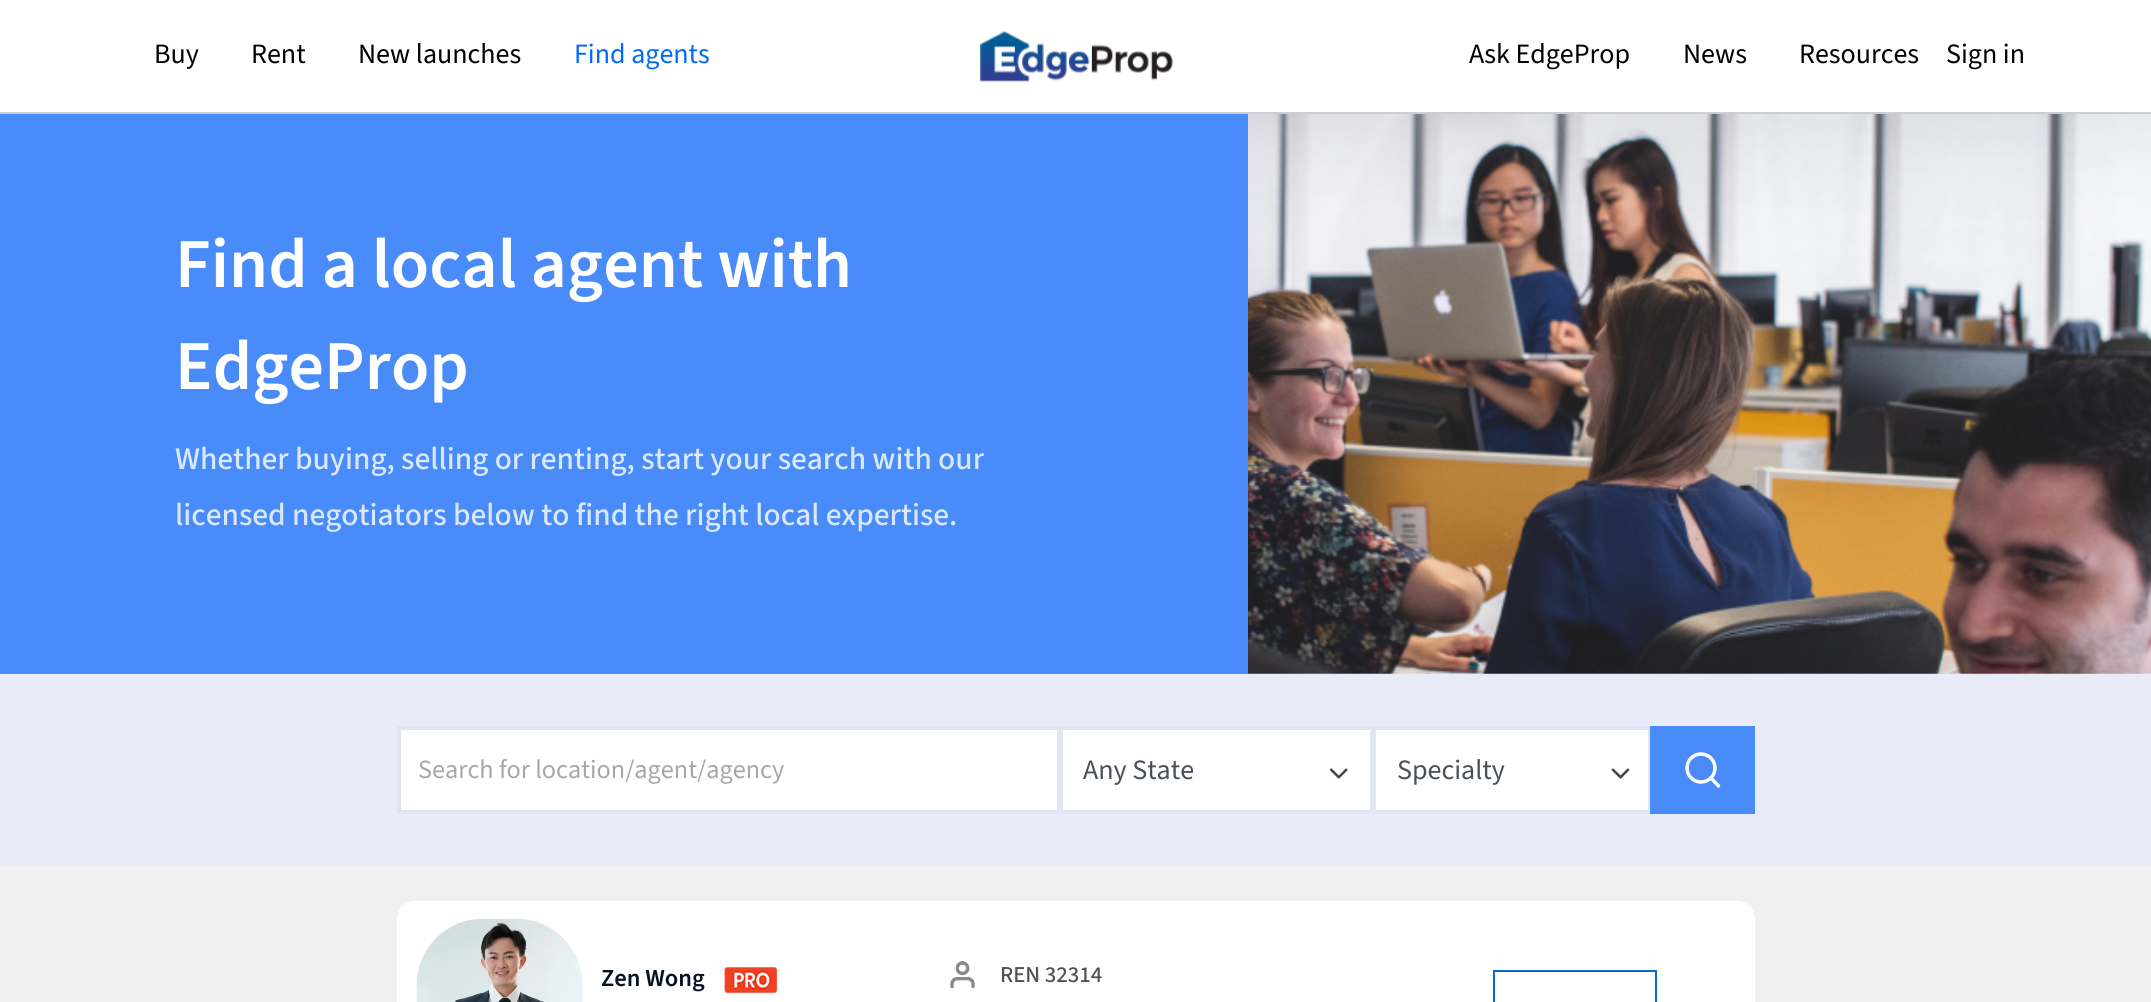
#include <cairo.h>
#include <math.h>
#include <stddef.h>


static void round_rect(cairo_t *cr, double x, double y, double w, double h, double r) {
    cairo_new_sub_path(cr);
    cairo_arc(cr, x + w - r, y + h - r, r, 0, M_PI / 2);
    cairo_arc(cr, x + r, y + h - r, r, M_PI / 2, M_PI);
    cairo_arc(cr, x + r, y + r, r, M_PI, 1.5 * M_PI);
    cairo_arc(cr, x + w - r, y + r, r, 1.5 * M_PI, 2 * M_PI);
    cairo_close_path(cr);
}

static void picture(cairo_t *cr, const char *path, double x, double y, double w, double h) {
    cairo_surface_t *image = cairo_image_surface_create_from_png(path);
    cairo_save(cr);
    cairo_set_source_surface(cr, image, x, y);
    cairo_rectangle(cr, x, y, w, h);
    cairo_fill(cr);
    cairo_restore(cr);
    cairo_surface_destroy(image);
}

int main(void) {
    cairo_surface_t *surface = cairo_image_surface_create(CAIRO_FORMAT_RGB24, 2151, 1002);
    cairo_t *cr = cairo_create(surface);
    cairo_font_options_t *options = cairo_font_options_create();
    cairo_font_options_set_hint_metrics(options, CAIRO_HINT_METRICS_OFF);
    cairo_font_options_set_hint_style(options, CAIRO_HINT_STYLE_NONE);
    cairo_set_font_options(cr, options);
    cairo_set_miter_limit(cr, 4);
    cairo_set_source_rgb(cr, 0.941, 0.941, 0.941);
    cairo_paint(cr);
    cairo_set_source_rgb(cr, 1, 1, 1);
    cairo_rectangle(cr, 0, 0, 2151, 112);
    cairo_fill(cr);
    cairo_set_source_rgb(cr, 0.804, 0.804, 0.827);
    cairo_rectangle(cr, 0, 112, 2151, 2);
    cairo_fill(cr);
    cairo_select_font_face(cr, "Source Sans 3", CAIRO_FONT_SLANT_NORMAL, CAIRO_FONT_WEIGHT_NORMAL);
    cairo_set_font_size(cr, 28);
    cairo_set_source_rgb(cr, 0, 0, 0);
    cairo_move_to(cr, 154, 63);
    cairo_show_text(cr, "Buy");
    cairo_move_to(cr, 251, 63);
    cairo_show_text(cr, "Rent");
    cairo_move_to(cr, 358, 63);
    cairo_show_text(cr, "New launches");
    cairo_set_source_rgb(cr, 0, 0.408, 1);
    cairo_move_to(cr, 574, 63);
    cairo_show_text(cr, "Find agents");
    picture(cr, "img1.png", 980, 31, 193, 51);
    cairo_set_source_rgb(cr, 0, 0, 0);
    cairo_move_to(cr, 1469, 63);
    cairo_show_text(cr, "Ask EdgeProp");
    cairo_move_to(cr, 1683, 63);
    cairo_show_text(cr, "News");
    cairo_move_to(cr, 1799, 63);
    cairo_show_text(cr, "Resources");
    cairo_move_to(cr, 1946, 63);
    cairo_show_text(cr, "Sign in");
    cairo_set_source_rgb(cr, 0.282, 0.545, 0.973);
    cairo_rectangle(cr, 0, 114, 1248, 560);
    cairo_fill(cr);
    cairo_select_font_face(cr, "Source Sans 3 SemiBold", CAIRO_FONT_SLANT_NORMAL, CAIRO_FONT_WEIGHT_NORMAL);
    cairo_set_font_size(cr, 70);
    cairo_set_source_rgb(cr, 1, 1, 1);
    cairo_move_to(cr, 175, 287);
    cairo_show_text(cr, "Find a local agent with");
    cairo_move_to(cr, 175, 389);
    cairo_show_text(cr, "EdgeProp");
    cairo_select_font_face(cr, "Source Sans 3 Medium", CAIRO_FONT_SLANT_NORMAL, CAIRO_FONT_WEIGHT_NORMAL);
    cairo_set_font_size(cr, 31.5);
    cairo_set_source_rgb(cr, 0.855, 0.91, 0.996);
    cairo_move_to(cr, 175, 469);
    cairo_show_text(cr, "Whether buying, selling or renting, start your search with our");
    cairo_move_to(cr, 175, 525);
    cairo_show_text(cr, "licensed negotiators below to find the right local expertise.");
    picture(cr, "img2.png", 1248, 114, 903, 560);
    cairo_set_source_rgb(cr, 0.914, 0.925, 0.969);
    cairo_rectangle(cr, 0, 674, 2151, 192);
    cairo_fill(cr);
    cairo_set_source_rgb(cr, 1, 1, 1);
    cairo_rectangle(cr, 399, 728, 660, 84);
    cairo_fill_preserve(cr);
    cairo_set_source_rgb(cr, 0.882, 0.898, 0.949);
    cairo_set_line_width(cr, 4);
    cairo_stroke(cr);
    cairo_select_font_face(cr, "Source Sans 3", CAIRO_FONT_SLANT_NORMAL, CAIRO_FONT_WEIGHT_NORMAL);
    cairo_set_font_size(cr, 26.25);
    cairo_set_source_rgb(cr, 0.655, 0.655, 0.655);
    cairo_move_to(cr, 418, 778);
    cairo_show_text(cr, "Search for location/agent/agency");
    cairo_set_source_rgb(cr, 1, 1, 1);
    cairo_rectangle(cr, 1061, 728, 311, 84);
    cairo_fill_preserve(cr);
    cairo_set_source_rgb(cr, 0.882, 0.898, 0.949);
    cairo_stroke(cr);
    cairo_set_font_size(cr, 28);
    cairo_set_source_rgb(cr, 0.286, 0.314, 0.341);
    cairo_move_to(cr, 1083, 779);
    cairo_show_text(cr, "Any State");
    picture(cr, "img3.png", 1330, 768, 18, 11);
    cairo_set_source_rgb(cr, 1, 1, 1);
    cairo_rectangle(cr, 1374, 728, 276, 84);
    cairo_fill_preserve(cr);
    cairo_set_source_rgb(cr, 0.882, 0.898, 0.949);
    cairo_stroke(cr);
    cairo_set_source_rgb(cr, 0.286, 0.314, 0.341);
    cairo_move_to(cr, 1397, 779);
    cairo_show_text(cr, "Specialty");
    picture(cr, "img4.png", 1611, 768, 19, 11);
    cairo_set_source_rgb(cr, 0.282, 0.545, 0.973);
    cairo_rectangle(cr, 1650, 726, 105, 88);
    cairo_fill(cr);
    cairo_new_path(cr);
    cairo_move_to(cr, 1718.5, 786);
    cairo_line_to(cr, 1711, 778);
    cairo_set_source_rgb(cr, 1, 1, 1);
    cairo_set_line_width(cr, 3.5);
    cairo_set_line_cap(cr, CAIRO_LINE_CAP_ROUND);
    cairo_set_line_join(cr, CAIRO_LINE_JOIN_ROUND);
    cairo_stroke(cr);
    cairo_arc(cr, 1701, 768, 14, 0, 2 * M_PI);
    cairo_set_line_cap(cr, CAIRO_LINE_CAP_BUTT);
    cairo_set_line_join(cr, CAIRO_LINE_JOIN_MITER);
    cairo_stroke(cr);
    round_rect(cr, 397, 901, 1358, 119, 18);
    cairo_fill(cr);
    picture(cr, "img5.png", 416, 919, 167, 83);
    cairo_select_font_face(cr, "Source Sans 3 SemiBold", CAIRO_FONT_SLANT_NORMAL, CAIRO_FONT_WEIGHT_NORMAL);
    cairo_set_font_size(cr, 24.5);
    cairo_set_source_rgb(cr, 0.027, 0.075, 0.141);
    cairo_move_to(cr, 601, 986);
    cairo_show_text(cr, "Zen Wong");
    picture(cr, "img6.png", 724, 967, 53, 26);
    picture(cr, "img7.png", 950, 961, 25, 28);
    cairo_select_font_face(cr, "Source Sans 3 Medium", CAIRO_FONT_SLANT_NORMAL, CAIRO_FONT_WEIGHT_NORMAL);
    cairo_set_font_size(cr, 22.75);
    cairo_set_source_rgb(cr, 0.322, 0.322, 0.322);
    cairo_move_to(cr, 1000, 982);
    cairo_show_text(cr, "REN 32314");
    cairo_rectangle(cr, 1494, 971, 162, 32);
    cairo_set_source_rgb(cr, 0.055, 0.42, 0.773);
    cairo_set_line_width(cr, 2);
    cairo_stroke(cr);
    cairo_surface_write_to_png(surface, "page.png");
    cairo_font_options_destroy(options);
    cairo_destroy(cr);
    cairo_surface_destroy(surface);
    return 0;
}
